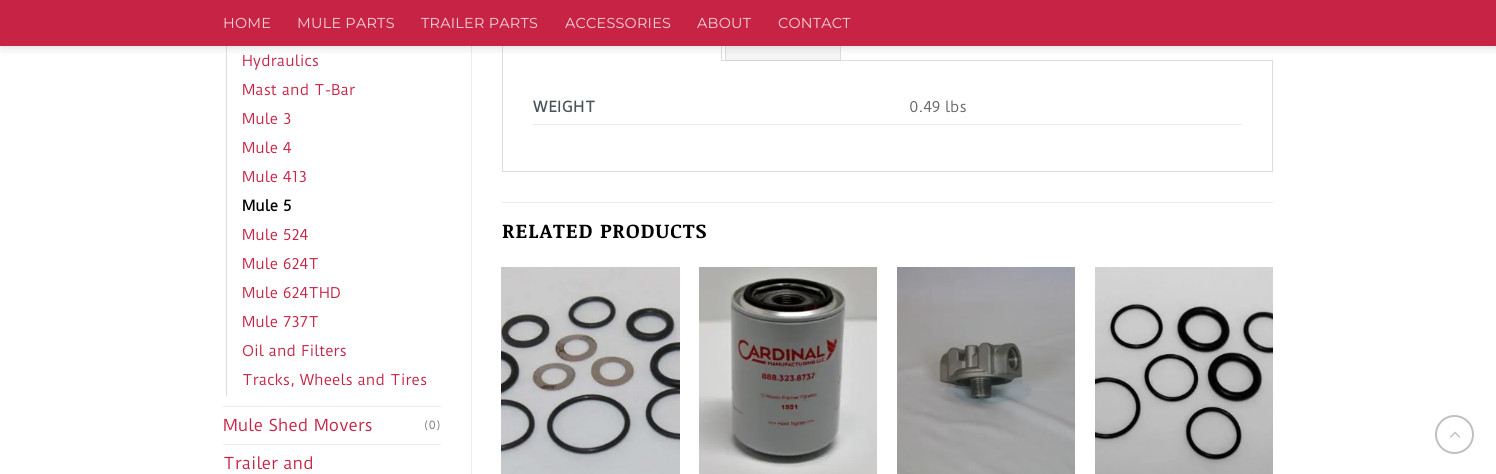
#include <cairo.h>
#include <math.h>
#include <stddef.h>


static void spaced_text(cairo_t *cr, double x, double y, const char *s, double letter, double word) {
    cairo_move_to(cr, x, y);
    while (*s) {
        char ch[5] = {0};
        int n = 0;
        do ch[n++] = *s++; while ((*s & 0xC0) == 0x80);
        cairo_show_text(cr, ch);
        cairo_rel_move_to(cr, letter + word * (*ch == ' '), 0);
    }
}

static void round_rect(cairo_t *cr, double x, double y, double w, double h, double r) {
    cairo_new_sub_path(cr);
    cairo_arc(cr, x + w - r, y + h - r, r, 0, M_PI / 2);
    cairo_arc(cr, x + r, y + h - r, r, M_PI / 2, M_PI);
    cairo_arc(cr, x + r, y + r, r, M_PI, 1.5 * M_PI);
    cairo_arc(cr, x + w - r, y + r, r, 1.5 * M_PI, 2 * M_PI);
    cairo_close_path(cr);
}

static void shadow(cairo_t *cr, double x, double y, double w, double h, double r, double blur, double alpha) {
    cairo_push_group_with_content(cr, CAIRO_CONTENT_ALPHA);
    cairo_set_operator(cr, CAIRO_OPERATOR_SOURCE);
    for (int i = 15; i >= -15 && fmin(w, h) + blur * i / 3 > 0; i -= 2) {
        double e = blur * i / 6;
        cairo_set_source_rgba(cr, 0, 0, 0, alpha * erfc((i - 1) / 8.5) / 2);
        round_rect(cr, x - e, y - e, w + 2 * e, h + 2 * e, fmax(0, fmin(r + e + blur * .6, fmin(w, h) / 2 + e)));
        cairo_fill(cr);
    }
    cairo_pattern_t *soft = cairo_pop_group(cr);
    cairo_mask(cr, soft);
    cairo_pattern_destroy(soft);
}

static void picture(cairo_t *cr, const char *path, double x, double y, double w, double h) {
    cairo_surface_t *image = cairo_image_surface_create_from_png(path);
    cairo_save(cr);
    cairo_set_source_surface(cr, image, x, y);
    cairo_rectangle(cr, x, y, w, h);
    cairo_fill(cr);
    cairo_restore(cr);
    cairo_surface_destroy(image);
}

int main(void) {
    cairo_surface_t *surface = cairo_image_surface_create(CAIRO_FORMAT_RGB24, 1496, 474);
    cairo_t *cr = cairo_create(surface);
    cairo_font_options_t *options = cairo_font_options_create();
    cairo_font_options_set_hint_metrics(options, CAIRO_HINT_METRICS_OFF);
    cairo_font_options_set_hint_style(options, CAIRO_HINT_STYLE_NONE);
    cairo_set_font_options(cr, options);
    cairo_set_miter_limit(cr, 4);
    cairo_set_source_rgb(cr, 1, 1, 1);
    cairo_paint(cr);
    cairo_set_source_rgb(cr, 0.867, 0.867, 0.867);
    cairo_rectangle(cr, 226, 46, 1, 350);
    cairo_fill(cr);
    cairo_set_source_rgb(cr, 0.925, 0.925, 0.925);
    cairo_rectangle(cr, 471, 46, 1, 428);
    cairo_fill(cr);
    cairo_rectangle(cr, 502.5, 60.5, 770, 111);
    cairo_set_source_rgb(cr, 0.867, 0.867, 0.867);
    cairo_set_line_width(cr, 1);
    cairo_stroke(cr);
    cairo_set_source_rgb(cr, 1, 1, 1);
    cairo_rectangle(cr, 503, 60, 218, 1);
    cairo_fill(cr);
    cairo_set_source_rgb(cr, 0.867, 0.867, 0.867);
    cairo_new_path(cr);
    cairo_move_to(cr, 722, 18);
    cairo_line_to(cr, 722, 61);
    cairo_line_to(cr, 721, 61);
    cairo_line_to(cr, 721, 20);
    cairo_close_path(cr);
    cairo_fill(cr);
    cairo_new_path(cr);
    cairo_move_to(cr, 502, 61);
    cairo_line_to(cr, 502, 18);
    cairo_line_to(cr, 503, 20);
    cairo_line_to(cr, 503, 61);
    cairo_close_path(cr);
    cairo_fill(cr);
    cairo_set_source_rgba(cr, 0, 0, 0, 0.04);
    cairo_rectangle(cr, 726, 46, 114, 15);
    cairo_fill(cr);
    cairo_set_source_rgb(cr, 0.867, 0.867, 0.867);
    cairo_rectangle(cr, 840, 46, 1, 15);
    cairo_fill(cr);
    cairo_rectangle(cr, 725, 46, 1, 15);
    cairo_fill(cr);
    cairo_set_source_rgb(cr, 0, 0, 0);
    shadow(cr, 1, 1, 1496, 46, 0, 5, 0.15);
    cairo_set_source_rgb(cr, 0.78, 0.137, 0.271);
    cairo_rectangle(cr, 0, 0, 1496, 46);
    cairo_fill(cr);
    cairo_select_font_face(cr, "Montserrat Thin", CAIRO_FONT_SLANT_NORMAL, CAIRO_FONT_WEIGHT_NORMAL);
    cairo_set_font_size(cr, 14.4);
    cairo_set_source_rgb(cr, 0.957, 0.827, 0.855);
    spaced_text(cr, 223, 28, "HOME", 0.25, 0);
    spaced_text(cr, 297, 28, "MULE PARTS", 0.25, 0);
    spaced_text(cr, 421, 28, "TRAILER PARTS", 0.25, 0);
    spaced_text(cr, 565, 28, "ACCESSORIES", 0.25, 0);
    spaced_text(cr, 697, 28, "ABOUT", 0.25, 0);
    spaced_text(cr, 778, 28, "CONTACT", 0.25, 0);
    cairo_select_font_face(cr, "Duru Sans", CAIRO_FONT_SLANT_NORMAL, CAIRO_FONT_WEIGHT_NORMAL);
    cairo_set_source_rgb(cr, 0.78, 0.137, 0.271);
    cairo_move_to(cr, 242, 66);
    cairo_show_text(cr, "Hydraulics");
    cairo_move_to(cr, 242, 95);
    cairo_show_text(cr, "Mast and T-Bar");
    cairo_move_to(cr, 242, 124);
    cairo_show_text(cr, "Mule 3");
    cairo_move_to(cr, 242, 153);
    cairo_show_text(cr, "Mule 4");
    cairo_move_to(cr, 242, 182);
    cairo_show_text(cr, "Mule 413");
    cairo_select_font_face(cr, "Duru Sans", CAIRO_FONT_SLANT_NORMAL, CAIRO_FONT_WEIGHT_BOLD);
    cairo_set_source_rgb(cr, 0, 0, 0);
    cairo_move_to(cr, 242, 211);
    cairo_show_text(cr, "Mule 5");
    cairo_select_font_face(cr, "Duru Sans", CAIRO_FONT_SLANT_NORMAL, CAIRO_FONT_WEIGHT_NORMAL);
    cairo_set_source_rgb(cr, 0.78, 0.137, 0.271);
    cairo_move_to(cr, 242, 240);
    cairo_show_text(cr, "Mule 524");
    cairo_move_to(cr, 242, 269);
    cairo_show_text(cr, "Mule 624T");
    cairo_move_to(cr, 242, 298);
    cairo_show_text(cr, "Mule 624THD");
    cairo_move_to(cr, 242, 327);
    cairo_show_text(cr, "Mule 737T");
    cairo_move_to(cr, 242, 356);
    cairo_show_text(cr, "Oil and Filters");
    cairo_move_to(cr, 242, 385);
    cairo_show_text(cr, "Tracks, Wheels and Tires");
    cairo_set_source_rgb(cr, 0.925, 0.925, 0.925);
    cairo_rectangle(cr, 223, 406, 218, 1);
    cairo_fill(cr);
    cairo_set_font_size(cr, 16);
    cairo_set_source_rgb(cr, 0.78, 0.137, 0.271);
    cairo_move_to(cr, 223, 431);
    cairo_show_text(cr, "Mule Shed Movers");
    cairo_set_font_size(cr, 11);
    cairo_set_source_rgb(cr, 0.427, 0.463, 0.475);
    cairo_move_to(cr, 424, 429);
    cairo_show_text(cr, "(0)");
    cairo_set_source_rgb(cr, 0.925, 0.925, 0.925);
    cairo_rectangle(cr, 223, 444, 218, 1);
    cairo_fill(cr);
    cairo_set_font_size(cr, 16);
    cairo_set_source_rgb(cr, 0.78, 0.137, 0.271);
    cairo_move_to(cr, 223, 469);
    cairo_show_text(cr, "Trailer and");
    cairo_set_source_rgb(cr, 0.925, 0.925, 0.925);
    cairo_rectangle(cr, 533, 124, 709, 1);
    cairo_fill(cr);
    cairo_select_font_face(cr, "Duru Sans", CAIRO_FONT_SLANT_NORMAL, CAIRO_FONT_WEIGHT_BOLD);
    cairo_set_font_size(cr, 14.4);
    cairo_set_source_rgb(cr, 0.282, 0.329, 0.345);
    spaced_text(cr, 533, 112, "WEIGHT", 0.75, 0);
    cairo_select_font_face(cr, "Duru Sans", CAIRO_FONT_SLANT_NORMAL, CAIRO_FONT_WEIGHT_NORMAL);
    cairo_set_source_rgb(cr, 0.4, 0.4, 0.4);
    cairo_move_to(cr, 909, 112);
    cairo_show_text(cr, "0.49 lbs");
    cairo_set_source_rgb(cr, 0.925, 0.925, 0.925);
    cairo_rectangle(cr, 502, 202, 771, 1);
    cairo_fill(cr);
    cairo_select_font_face(cr, "Noticia Text", CAIRO_FONT_SLANT_NORMAL, CAIRO_FONT_WEIGHT_BOLD);
    cairo_set_font_size(cr, 20);
    cairo_set_source_rgb(cr, 0, 0, 0);
    spaced_text(cr, 502, 238, "RELATED PRODUCTS", 1, 0);
    picture(cr, "img1.png", 501, 267, 179, 207);
    picture(cr, "img2.png", 699, 267, 178, 207);
    picture(cr, "img3.png", 897, 267, 178, 207);
    picture(cr, "img4.png", 1095, 267, 178, 207);
    cairo_arc(cr, 1454.5, 434.5, 18.5, 0, 2 * M_PI);
    cairo_set_source_rgb(cr, 0.753, 0.753, 0.753);
    cairo_set_line_width(cr, 2);
    cairo_stroke(cr);
    picture(cr, "img5.png", 1449, 431, 11, 7);
    cairo_surface_write_to_png(surface, "page.png");
    cairo_font_options_destroy(options);
    cairo_destroy(cr);
    cairo_surface_destroy(surface);
    return 0;
}
